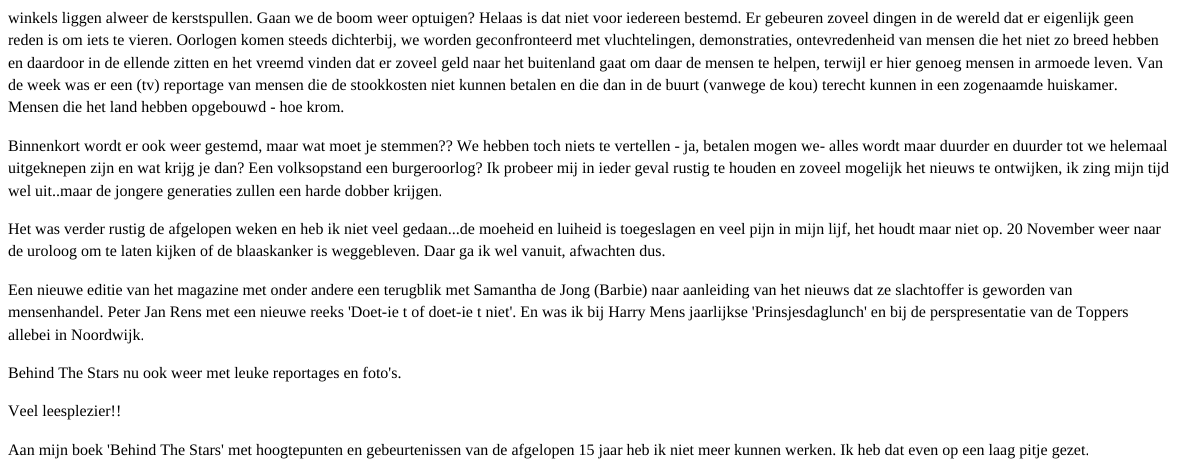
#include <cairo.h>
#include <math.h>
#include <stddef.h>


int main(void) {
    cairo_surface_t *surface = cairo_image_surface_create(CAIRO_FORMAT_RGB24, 1177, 459);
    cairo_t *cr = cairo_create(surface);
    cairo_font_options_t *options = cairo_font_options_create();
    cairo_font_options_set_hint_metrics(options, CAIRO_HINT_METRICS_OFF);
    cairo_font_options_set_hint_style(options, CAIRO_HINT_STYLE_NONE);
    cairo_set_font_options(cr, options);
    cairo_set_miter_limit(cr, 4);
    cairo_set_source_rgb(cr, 1, 1, 1);
    cairo_paint(cr);
    cairo_select_font_face(cr, "Liberation Serif", CAIRO_FONT_SLANT_NORMAL, CAIRO_FONT_WEIGHT_NORMAL);
    cairo_set_font_size(cr, 16);
    cairo_set_source_rgb(cr, 0, 0, 0);
    cairo_move_to(cr, 8, 23);
    cairo_show_text(cr, "winkels liggen alweer de kerstspullen. Gaan we de boom weer optuigen? Helaas is dat niet voor iedereen bestemd. Er gebeuren zoveel dingen in de wereld dat er eigenlijk geen");
    cairo_move_to(cr, 8, 45);
    cairo_show_text(cr, "reden is om iets te vieren. Oorlogen komen steeds dichterbij, we worden geconfronteerd met vluchtelingen, demonstraties, ontevredenheid van mensen die het niet zo breed hebben");
    cairo_move_to(cr, 8, 68);
    cairo_show_text(cr, "en daardoor in de ellende zitten en het vreemd vinden dat er zoveel geld naar het buitenland gaat om daar de mensen te helpen, terwijl er hier genoeg mensen in armoede leven. Van");
    cairo_move_to(cr, 8, 90);
    cairo_show_text(cr, "de week was er een (tv) reportage van mensen die de stookkosten niet kunnen betalen en die dan in de buurt (vanwege de kou) terecht kunnen in een zogenaamde huiskamer.");
    cairo_move_to(cr, 8, 112);
    cairo_show_text(cr, "Mensen die het land hebben opgebouwd - hoe krom.");
    cairo_move_to(cr, 8, 151);
    cairo_show_text(cr, "Binnenkort wordt er ook weer gestemd, maar wat moet je stemmen?\077 We hebben toch niets te vertellen - ja, betalen mogen we- alles wordt maar duurder en duurder tot we helemaal");
    cairo_move_to(cr, 8, 173);
    cairo_show_text(cr, "uitgeknepen zijn en wat krijg je dan? Een volksopstand een burgeroorlog? Ik probeer mij in ieder geval rustig te houden en zoveel mogelijk het nieuws te ontwijken, ik zing mijn tijd");
    cairo_move_to(cr, 8, 196);
    cairo_show_text(cr, "wel uit..maar de jongere generaties zullen een harde dobber krijgen.");
    cairo_move_to(cr, 8, 234);
    cairo_show_text(cr, "Het was verder rustig de afgelopen weken en heb ik niet veel gedaan...de moeheid en luiheid is toegeslagen en veel pijn in mijn lijf, het houdt maar niet op. 20 November weer naar");
    cairo_move_to(cr, 8, 256);
    cairo_show_text(cr, "de uroloog om te laten kijken of de blaaskanker is weggebleven. Daar ga ik wel vanuit, afwachten dus.");
    cairo_move_to(cr, 8, 295);
    cairo_show_text(cr, "Een nieuwe editie van het magazine met onder andere een terugblik met Samantha de Jong (Barbie) naar aanleiding van het nieuws dat ze slachtoffer is geworden van");
    cairo_move_to(cr, 8, 317);
    cairo_show_text(cr, "mensenhandel. Peter Jan Rens met een nieuwe reeks 'Doet-ie t of doet-ie t niet'. En was ik bij Harry Mens jaarlijkse 'Prinsjesdaglunch' en bij de perspresentatie van de Toppers");
    cairo_move_to(cr, 8, 340);
    cairo_show_text(cr, "allebei in Noordwijk.");
    cairo_move_to(cr, 8, 378);
    cairo_show_text(cr, "Behind The Stars nu ook weer met leuke reportages en foto's.");
    cairo_move_to(cr, 8, 416);
    cairo_show_text(cr, "Veel leesplezier!!");
    cairo_move_to(cr, 8, 455);
    cairo_show_text(cr, "Aan mijn boek 'Behind The Stars' met hoogtepunten en gebeurtenissen van de afgelopen 15 jaar heb ik niet meer kunnen werken. Ik heb dat even op een laag pitje gezet.");
    cairo_surface_write_to_png(surface, "page.png");
    cairo_font_options_destroy(options);
    cairo_destroy(cr);
    cairo_surface_destroy(surface);
    return 0;
}
